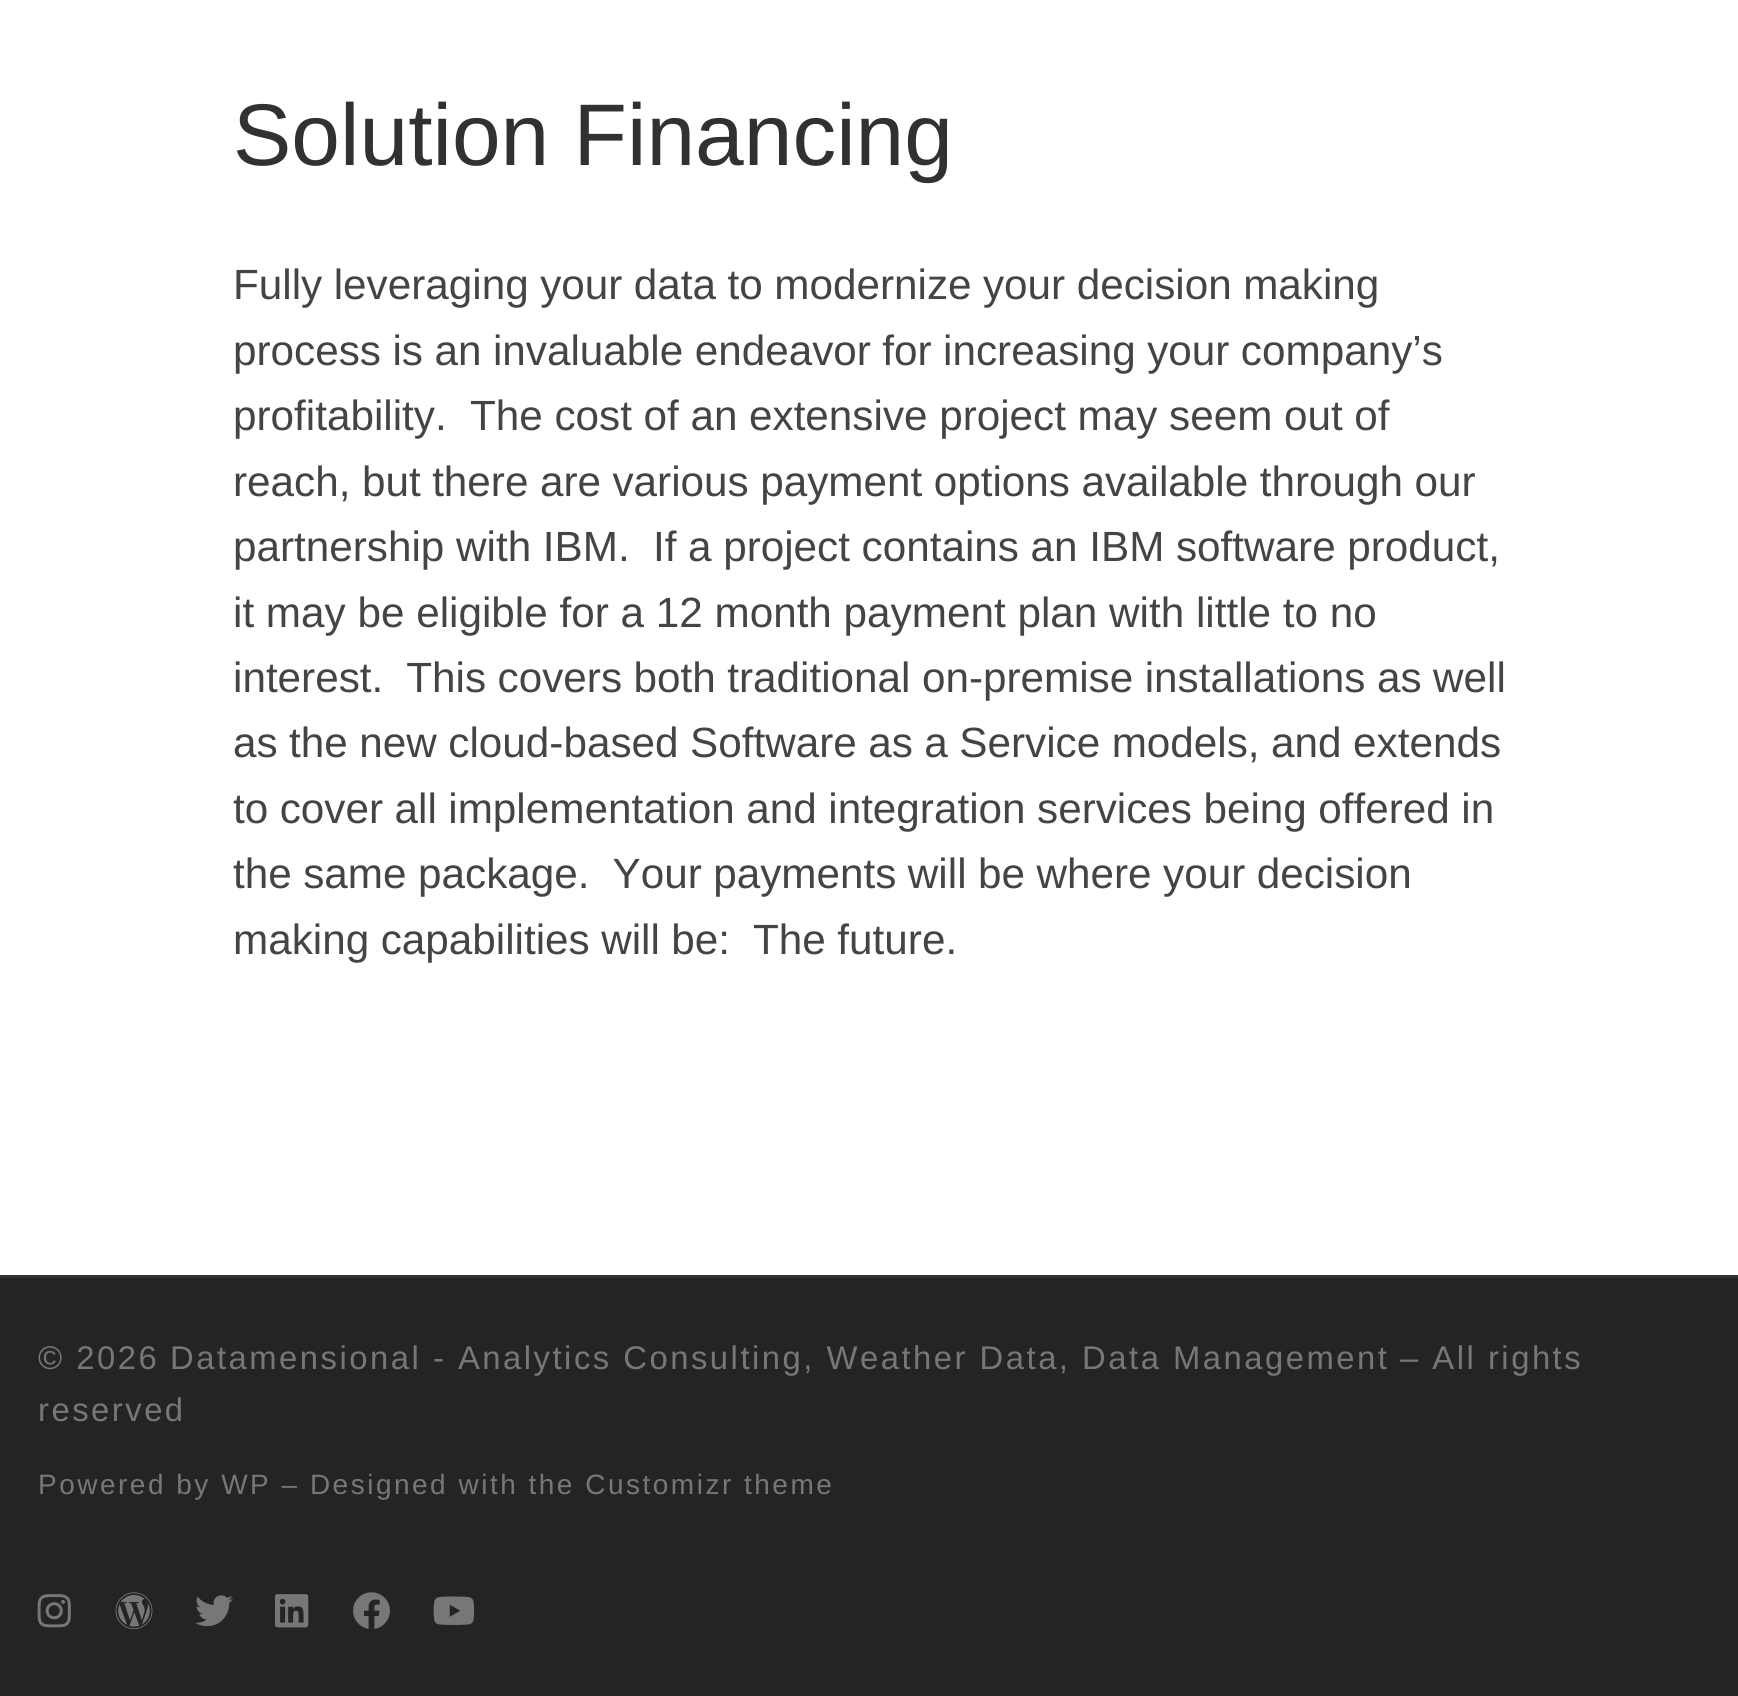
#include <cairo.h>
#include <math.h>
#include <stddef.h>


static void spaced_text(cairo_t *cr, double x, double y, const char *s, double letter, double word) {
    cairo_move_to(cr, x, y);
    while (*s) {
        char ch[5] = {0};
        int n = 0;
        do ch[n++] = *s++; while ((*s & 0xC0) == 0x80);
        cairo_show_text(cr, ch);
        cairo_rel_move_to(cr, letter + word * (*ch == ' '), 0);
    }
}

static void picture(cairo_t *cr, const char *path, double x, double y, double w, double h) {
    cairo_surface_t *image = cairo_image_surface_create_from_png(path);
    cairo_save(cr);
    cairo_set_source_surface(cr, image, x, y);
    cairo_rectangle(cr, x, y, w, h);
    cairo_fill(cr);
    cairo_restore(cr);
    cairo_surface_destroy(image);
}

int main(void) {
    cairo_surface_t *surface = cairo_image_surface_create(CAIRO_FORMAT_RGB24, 1738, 1696);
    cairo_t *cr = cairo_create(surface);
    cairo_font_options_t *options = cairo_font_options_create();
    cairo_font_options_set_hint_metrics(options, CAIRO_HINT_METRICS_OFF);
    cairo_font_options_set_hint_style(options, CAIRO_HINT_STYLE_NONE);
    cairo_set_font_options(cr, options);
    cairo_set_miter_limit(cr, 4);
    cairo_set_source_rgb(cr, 1, 1, 1);
    cairo_paint(cr);
    cairo_select_font_face(cr, "Liberation Sans", CAIRO_FONT_SLANT_NORMAL, CAIRO_FONT_WEIGHT_NORMAL);
    cairo_set_font_size(cr, 87.5);
    cairo_set_source_rgb(cr, 0.188, 0.192, 0.2);
    cairo_move_to(cr, 233, 165);
    cairo_show_text(cr, "Solution Financing");
    cairo_set_font_size(cr, 42.25);
    cairo_set_source_rgb(cr, 0.267, 0.267, 0.267);
    spaced_text(cr, 233, 299, "Fully leveraging your data to modernize your decision making", 0, -0.25);
    spaced_text(cr, 233, 365, "process is an invaluable endeavor for increasing your company’s", 0, -0.25);
    spaced_text(cr, 233, 430, "profitability.  The cost of an extensive project may seem out of", 0, -0.1);
    spaced_text(cr, 233, 496, "reach, but there are various payment options available through our", 0, -0.25);
    spaced_text(cr, 233, 561, "partnership with IBM.  If a project contains an IBM software product,", 0, -0.1);
    cairo_move_to(cr, 233, 627);
    cairo_show_text(cr, "it may be eligible for a 12 month payment plan with little to no");
    spaced_text(cr, 233, 692, "interest.  This covers both traditional on-premise installations as well", 0, -0.25);
    spaced_text(cr, 233, 757, "as the new cloud-based Software as a Service models, and extends", 0, -0.25);
    spaced_text(cr, 233, 823, "to cover all implementation and integration services being offered in", 0, -0.25);
    spaced_text(cr, 233, 888, "the same package.  Your payments will be where your decision", 0, -0.25);
    spaced_text(cr, 233, 954, "making capabilities will be:  The future.", 0, -0.25);
    cairo_set_source_rgb(cr, 0.192, 0.192, 0.192);
    cairo_rectangle(cr, 0, 1275, 1738, 3);
    cairo_fill(cr);
    cairo_set_source_rgb(cr, 0.141, 0.141, 0.141);
    cairo_rectangle(cr, 0, 1278, 1738, 418);
    cairo_fill(cr);
    cairo_set_font_size(cr, 32.8);
    cairo_set_source_rgb(cr, 0.467, 0.467, 0.467);
    spaced_text(cr, 38, 1369, "© 2026", 2.5, 0);
    spaced_text(cr, 170, 1369, "Datamensional - Analytics Consulting, Weather Data, Data Management", 2.5, 0);
    spaced_text(cr, 1400, 1369, "– All rights", 2.5, 0);
    spaced_text(cr, 38, 1421, "reserved", 2.5, 0);
    cairo_set_font_size(cr, 28);
    spaced_text(cr, 38, 1494, "Powered by WP – Designed with the Customizr theme", 2.5, 0);
    picture(cr, "img1.png", 37, 1594, 34, 34);
    picture(cr, "img2.png", 115, 1592, 38, 38);
    picture(cr, "img3.png", 195, 1595, 38, 32);
    picture(cr, "img4.png", 275, 1594, 34, 34);
    picture(cr, "img5.png", 353, 1592, 37, 37);
    picture(cr, "img6.png", 433, 1596, 42, 29);
    cairo_surface_write_to_png(surface, "page.png");
    cairo_font_options_destroy(options);
    cairo_destroy(cr);
    cairo_surface_destroy(surface);
    return 0;
}
